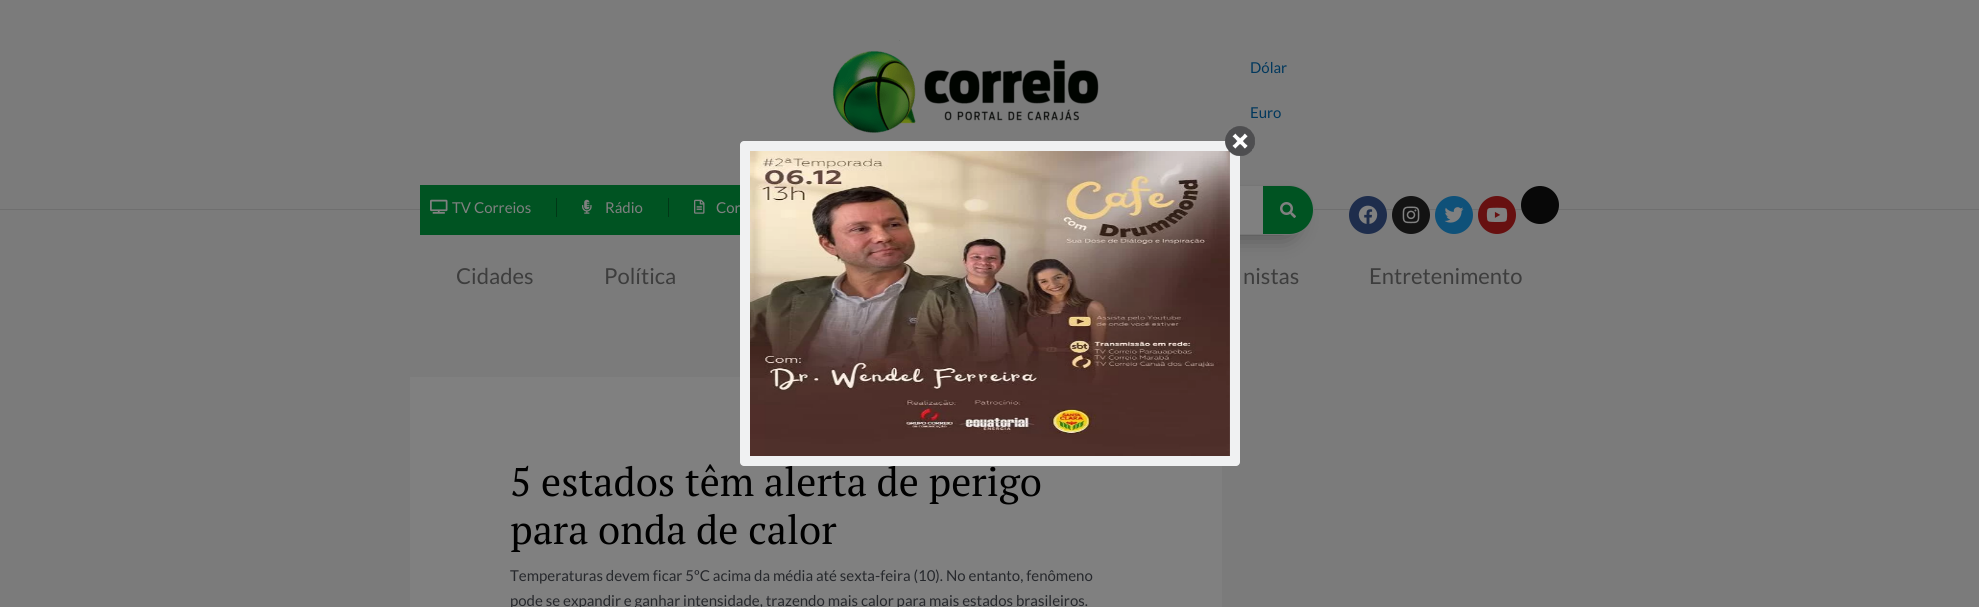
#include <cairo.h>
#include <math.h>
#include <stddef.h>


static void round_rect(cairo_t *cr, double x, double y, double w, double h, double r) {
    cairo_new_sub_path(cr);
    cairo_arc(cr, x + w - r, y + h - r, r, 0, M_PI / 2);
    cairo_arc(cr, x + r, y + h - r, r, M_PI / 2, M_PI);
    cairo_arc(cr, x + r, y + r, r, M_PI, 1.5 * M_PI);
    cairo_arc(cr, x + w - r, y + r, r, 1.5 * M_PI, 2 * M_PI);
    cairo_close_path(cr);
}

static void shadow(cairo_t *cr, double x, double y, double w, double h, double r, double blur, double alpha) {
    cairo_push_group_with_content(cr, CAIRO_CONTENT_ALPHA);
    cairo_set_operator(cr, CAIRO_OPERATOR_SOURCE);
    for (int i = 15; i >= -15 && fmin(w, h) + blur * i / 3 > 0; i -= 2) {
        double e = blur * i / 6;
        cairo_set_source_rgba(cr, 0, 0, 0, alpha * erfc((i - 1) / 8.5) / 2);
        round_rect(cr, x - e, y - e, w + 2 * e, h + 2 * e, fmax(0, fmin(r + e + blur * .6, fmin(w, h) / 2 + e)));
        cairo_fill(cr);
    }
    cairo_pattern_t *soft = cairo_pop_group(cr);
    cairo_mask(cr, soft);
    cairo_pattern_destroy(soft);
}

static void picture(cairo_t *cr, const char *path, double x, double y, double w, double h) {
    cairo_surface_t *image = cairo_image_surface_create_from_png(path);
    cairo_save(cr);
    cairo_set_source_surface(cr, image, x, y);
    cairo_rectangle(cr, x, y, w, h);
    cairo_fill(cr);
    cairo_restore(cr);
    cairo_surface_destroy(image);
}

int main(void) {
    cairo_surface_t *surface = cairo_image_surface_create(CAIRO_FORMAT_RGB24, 1979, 607);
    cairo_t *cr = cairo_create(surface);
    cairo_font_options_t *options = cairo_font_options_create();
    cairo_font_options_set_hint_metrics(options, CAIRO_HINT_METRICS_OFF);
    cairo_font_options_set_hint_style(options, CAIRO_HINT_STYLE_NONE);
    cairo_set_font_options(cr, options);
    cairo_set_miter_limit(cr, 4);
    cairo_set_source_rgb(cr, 0.482, 0.482, 0.482);
    cairo_paint(cr);
    cairo_set_source_rgb(cr, 0.435, 0.435, 0.435);
    cairo_rectangle(cr, 0, 209, 1979, 1);
    cairo_fill(cr);
    picture(cr, "img1.png", 832, 40, 267, 93);
    cairo_select_font_face(cr, "Lato", CAIRO_FONT_SLANT_NORMAL, CAIRO_FONT_WEIGHT_NORMAL);
    cairo_set_font_size(cr, 15);
    cairo_set_source_rgb(cr, 0.004, 0.22, 0.365);
    cairo_move_to(cr, 1250, 73);
    cairo_show_text(cr, "Dólar");
    cairo_move_to(cr, 1250, 118);
    cairo_show_text(cr, "Euro");
    cairo_set_source_rgb(cr, 0, 0.325, 0.133);
    cairo_rectangle(cr, 420, 185, 320, 50);
    cairo_fill(cr);
    picture(cr, "img2.png", 430, 199, 18, 15);
    cairo_set_source_rgb(cr, 0.502, 0.502, 0.502);
    cairo_move_to(cr, 452, 213);
    cairo_show_text(cr, "TV Correios");
    cairo_set_source_rgb(cr, 0, 0.22, 0.09);
    cairo_rectangle(cr, 556, 198, 1, 19);
    cairo_fill(cr);
    picture(cr, "img3.png", 582, 199, 10, 15);
    cairo_set_source_rgb(cr, 0.502, 0.502, 0.502);
    cairo_move_to(cr, 605, 213);
    cairo_show_text(cr, "Rádio");
    cairo_set_source_rgb(cr, 0, 0.22, 0.09);
    cairo_rectangle(cr, 668, 198, 1, 19);
    cairo_fill(cr);
    picture(cr, "img4.png", 694, 199, 11, 15);
    cairo_set_source_rgb(cr, 0.502, 0.502, 0.502);
    cairo_move_to(cr, 716, 213);
    cairo_show_text(cr, "Cor");
    cairo_set_source_rgb(cr, 0, 0, 0);
    shadow(cr, 895, 206, 398, 28, 14, 12, 0.41);
    round_rect(cr, 894.5, 185.5, 419, 49, 24.5);
    cairo_set_source_rgb(cr, 0.463, 0.463, 0.463);
    cairo_set_line_width(cr, 1);
    cairo_stroke(cr);
    cairo_set_source_rgb(cr, 0.502, 0.502, 0.502);
    cairo_rectangle(cr, 1240, 186, 23, 48);
    cairo_fill(cr);
    cairo_set_source_rgb(cr, 0, 0.325, 0.133);
    cairo_new_path(cr);
    cairo_move_to(cr, 1263, 186);
    cairo_line_to(cr, 1289, 186);
    cairo_curve_to(cr, 1302.5, 186, 1313, 196.5, 1313, 210);
    cairo_curve_to(cr, 1313, 223.5, 1302.5, 234, 1289, 234);
    cairo_line_to(cr, 1263, 234);
    cairo_close_path(cr);
    cairo_fill(cr);
    picture(cr, "img5.png", 1280, 202, 16, 16);
    cairo_set_source_rgb(cr, 0.118, 0.176, 0.298);
    cairo_arc(cr, 1368, 215, 19, 0, 2 * M_PI);
    cairo_fill(cr);
    picture(cr, "img6.png", 1358, 205, 20, 19);
    cairo_set_source_rgb(cr, 0.075, 0.075, 0.075);
    cairo_arc(cr, 1411, 215, 19, 0, 2 * M_PI);
    cairo_fill(cr);
    picture(cr, "img7.png", 1402, 206, 18, 18);
    cairo_set_source_rgb(cr, 0.059, 0.318, 0.475);
    cairo_arc(cr, 1454, 215, 19, 0, 2 * M_PI);
    cairo_fill(cr);
    picture(cr, "img8.png", 1444, 207, 20, 16);
    cairo_set_source_rgb(cr, 0.404, 0.063, 0.063);
    cairo_arc(cr, 1497, 215, 19, 0, 2 * M_PI);
    cairo_fill(cr);
    picture(cr, "img9.png", 1486, 207, 22, 15);
    cairo_set_source_rgb(cr, 0.035, 0.035, 0.035);
    cairo_arc(cr, 1540, 205, 19, 0, 2 * M_PI);
    cairo_fill(cr);
    cairo_set_font_size(cr, 22);
    cairo_set_source_rgb(cr, 0.239, 0.239, 0.239);
    cairo_move_to(cr, 456, 284);
    cairo_show_text(cr, "Cidades");
    cairo_move_to(cr, 604, 284);
    cairo_show_text(cr, "Política");
    cairo_move_to(cr, 1243, 284);
    cairo_show_text(cr, "nistas");
    cairo_move_to(cr, 1369, 284);
    cairo_show_text(cr, "Entretenimento");
    cairo_set_source_rgb(cr, 0.502, 0.502, 0.502);
    cairo_rectangle(cr, 410, 377, 812, 230);
    cairo_fill(cr);
    cairo_select_font_face(cr, "PT Serif", CAIRO_FONT_SLANT_NORMAL, CAIRO_FONT_WEIGHT_NORMAL);
    cairo_set_font_size(cr, 40);
    cairo_set_source_rgb(cr, 0, 0, 0);
    cairo_move_to(cr, 510, 496);
    cairo_show_text(cr, "5 estados têm alerta de perigo");
    cairo_move_to(cr, 510, 544);
    cairo_show_text(cr, "para onda de calor");
    cairo_select_font_face(cr, "Lato", CAIRO_FONT_SLANT_NORMAL, CAIRO_FONT_WEIGHT_NORMAL);
    cairo_set_font_size(cr, 15);
    cairo_set_source_rgb(cr, 0.149, 0.157, 0.173);
    cairo_move_to(cr, 510, 581);
    cairo_show_text(cr, "Temperaturas devem ficar 5ºC acima da média até sexta-feira (10). No entanto, fenômeno");
    cairo_move_to(cr, 510, 606);
    cairo_show_text(cr, "pode se expandir e ganhar intensidade, trazendo mais calor para mais estados brasileiros.");
    cairo_set_source_rgb(cr, 0.941, 0.945, 0.949);
    round_rect(cr, 740, 141, 500, 325, 4);
    cairo_fill(cr);
    picture(cr, "img11.png", 750, 151, 480, 305);
    picture(cr, "img10.png", 1225, 126, 30, 30);
    cairo_surface_write_to_png(surface, "page.png");
    cairo_font_options_destroy(options);
    cairo_destroy(cr);
    cairo_surface_destroy(surface);
    return 0;
}
